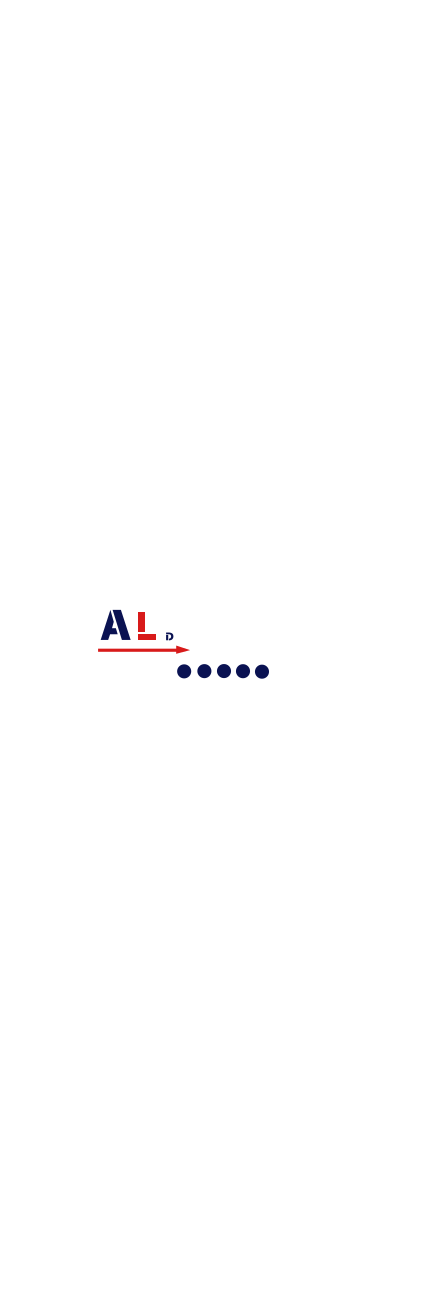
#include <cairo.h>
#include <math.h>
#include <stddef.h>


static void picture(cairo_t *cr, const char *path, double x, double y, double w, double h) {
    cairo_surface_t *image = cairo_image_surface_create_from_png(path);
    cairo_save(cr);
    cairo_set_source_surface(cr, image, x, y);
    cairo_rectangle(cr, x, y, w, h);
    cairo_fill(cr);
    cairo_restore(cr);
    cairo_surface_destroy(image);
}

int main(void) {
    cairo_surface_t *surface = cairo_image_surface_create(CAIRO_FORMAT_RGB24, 448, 1290);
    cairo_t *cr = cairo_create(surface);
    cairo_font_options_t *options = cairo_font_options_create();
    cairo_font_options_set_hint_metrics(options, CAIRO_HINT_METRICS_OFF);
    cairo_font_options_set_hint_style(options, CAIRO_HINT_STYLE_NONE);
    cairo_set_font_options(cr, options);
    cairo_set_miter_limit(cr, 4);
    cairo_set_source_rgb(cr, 1, 1, 1);
    cairo_paint(cr);
    picture(cr, "img1.png", 98, 609, 171, 70);
    cairo_surface_write_to_png(surface, "page.png");
    cairo_font_options_destroy(options);
    cairo_destroy(cr);
    cairo_surface_destroy(surface);
    return 0;
}
